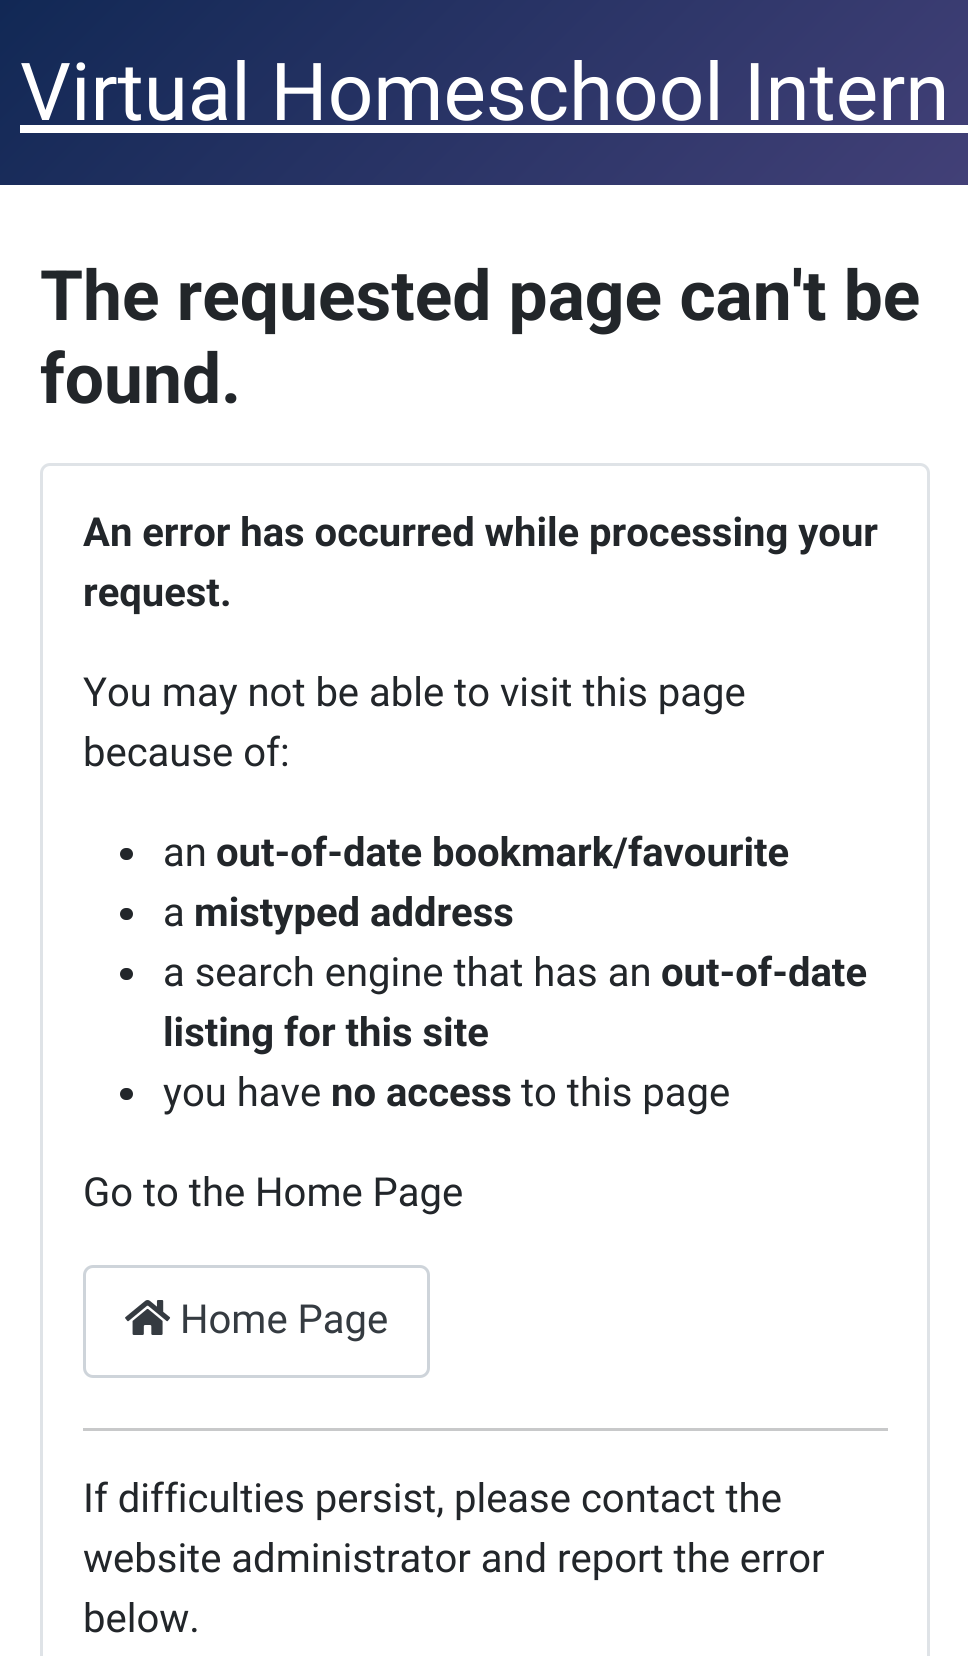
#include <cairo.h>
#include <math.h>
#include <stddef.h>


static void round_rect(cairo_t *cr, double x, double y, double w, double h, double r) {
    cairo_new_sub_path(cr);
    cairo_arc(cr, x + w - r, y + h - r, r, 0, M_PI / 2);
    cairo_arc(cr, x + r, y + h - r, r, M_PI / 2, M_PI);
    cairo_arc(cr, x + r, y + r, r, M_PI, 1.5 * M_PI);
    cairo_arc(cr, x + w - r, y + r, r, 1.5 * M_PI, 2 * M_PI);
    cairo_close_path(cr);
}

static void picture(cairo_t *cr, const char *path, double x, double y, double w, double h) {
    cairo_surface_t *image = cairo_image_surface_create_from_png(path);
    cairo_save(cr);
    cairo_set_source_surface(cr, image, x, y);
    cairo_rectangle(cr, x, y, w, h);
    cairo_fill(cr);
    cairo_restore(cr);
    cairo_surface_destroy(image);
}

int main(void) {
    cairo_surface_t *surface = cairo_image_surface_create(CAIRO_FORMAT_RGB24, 968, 1656);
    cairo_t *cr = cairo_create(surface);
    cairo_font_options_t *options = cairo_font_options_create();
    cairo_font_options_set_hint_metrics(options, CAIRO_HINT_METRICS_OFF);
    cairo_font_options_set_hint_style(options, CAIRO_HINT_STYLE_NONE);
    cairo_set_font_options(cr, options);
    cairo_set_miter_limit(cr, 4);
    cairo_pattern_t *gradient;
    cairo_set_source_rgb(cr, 1, 1, 1);
    cairo_paint(cr);
    gradient = cairo_pattern_create_linear(196, -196, 774, 381);
    cairo_pattern_add_color_stop_rgba(gradient, 0, 0.067, 0.157, 0.333, 1);
    cairo_pattern_add_color_stop_rgba(gradient, 1, 0.259, 0.251, 0.467, 1);
    cairo_set_source(cr, gradient);
    cairo_pattern_destroy(gradient);
    cairo_rectangle(cr, 0, 0, 968, 185);
    cairo_fill(cr);
    cairo_select_font_face(cr, "Roboto", CAIRO_FONT_SLANT_NORMAL, CAIRO_FONT_WEIGHT_NORMAL);
    cairo_set_font_size(cr, 80);
    cairo_set_source_rgb(cr, 1, 1, 1);
    cairo_move_to(cr, 20, 120);
    cairo_show_text(cr, "Virtual Homeschool Intern");
    cairo_rectangle(cr, 20, 125, 948, 8);
    cairo_fill(cr);
    cairo_select_font_face(cr, "Roboto", CAIRO_FONT_SLANT_NORMAL, CAIRO_FONT_WEIGHT_BOLD);
    cairo_set_font_size(cr, 69.5);
    cairo_set_source_rgb(cr, 0.133, 0.149, 0.165);
    cairo_move_to(cr, 40, 320);
    cairo_show_text(cr, "The requested page can't be");
    cairo_move_to(cr, 40, 403);
    cairo_show_text(cr, "found.");
    round_rect(cr, 41.5, 464.5, 887, 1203, 8.5);
    cairo_set_source_rgb(cr, 0.875, 0.89, 0.906);
    cairo_set_line_width(cr, 3);
    cairo_stroke(cr);
    cairo_set_font_size(cr, 40);
    cairo_set_source_rgb(cr, 0.133, 0.149, 0.165);
    cairo_move_to(cr, 83, 546);
    cairo_show_text(cr, "An error has occurred while processing your");
    cairo_move_to(cr, 83, 606);
    cairo_show_text(cr, "request.");
    cairo_select_font_face(cr, "Roboto", CAIRO_FONT_SLANT_NORMAL, CAIRO_FONT_WEIGHT_NORMAL);
    cairo_move_to(cr, 83, 706);
    cairo_show_text(cr, "You may not be able to visit this page");
    cairo_move_to(cr, 83, 766);
    cairo_show_text(cr, "because of:");
    round_rect(cr, 120, 848, 13, 12, 6);
    cairo_fill(cr);
    cairo_move_to(cr, 163, 866);
    cairo_show_text(cr, "an");
    cairo_select_font_face(cr, "Roboto", CAIRO_FONT_SLANT_NORMAL, CAIRO_FONT_WEIGHT_BOLD);
    cairo_move_to(cr, 216, 866);
    cairo_show_text(cr, "out-of-date bookmark/favourite");
    round_rect(cr, 120, 908, 13, 12, 6);
    cairo_fill(cr);
    cairo_select_font_face(cr, "Roboto", CAIRO_FONT_SLANT_NORMAL, CAIRO_FONT_WEIGHT_NORMAL);
    cairo_move_to(cr, 163, 926);
    cairo_show_text(cr, "a");
    cairo_select_font_face(cr, "Roboto", CAIRO_FONT_SLANT_NORMAL, CAIRO_FONT_WEIGHT_BOLD);
    cairo_move_to(cr, 194, 926);
    cairo_show_text(cr, "mistyped address");
    round_rect(cr, 120, 968, 13, 12, 6);
    cairo_fill(cr);
    cairo_select_font_face(cr, "Roboto", CAIRO_FONT_SLANT_NORMAL, CAIRO_FONT_WEIGHT_NORMAL);
    cairo_move_to(cr, 163, 986);
    cairo_show_text(cr, "a search engine that has an");
    cairo_select_font_face(cr, "Roboto", CAIRO_FONT_SLANT_NORMAL, CAIRO_FONT_WEIGHT_BOLD);
    cairo_move_to(cr, 661, 986);
    cairo_show_text(cr, "out-of-date");
    cairo_move_to(cr, 163, 1046);
    cairo_show_text(cr, "listing for this site");
    round_rect(cr, 120, 1088, 13, 12, 6);
    cairo_fill(cr);
    cairo_select_font_face(cr, "Roboto", CAIRO_FONT_SLANT_NORMAL, CAIRO_FONT_WEIGHT_NORMAL);
    cairo_move_to(cr, 163, 1106);
    cairo_show_text(cr, "you have");
    cairo_select_font_face(cr, "Roboto", CAIRO_FONT_SLANT_NORMAL, CAIRO_FONT_WEIGHT_BOLD);
    cairo_move_to(cr, 331, 1106);
    cairo_show_text(cr, "no access");
    cairo_select_font_face(cr, "Roboto", CAIRO_FONT_SLANT_NORMAL, CAIRO_FONT_WEIGHT_NORMAL);
    cairo_move_to(cr, 521, 1106);
    cairo_show_text(cr, "to this page");
    cairo_move_to(cr, 83, 1206);
    cairo_show_text(cr, "Go to the Home Page");
    round_rect(cr, 84.5, 1266.5, 344, 110, 8.5);
    cairo_set_source_rgb(cr, 0.808, 0.831, 0.855);
    cairo_stroke(cr);
    picture(cr, "img1.png", 125, 1300, 46, 35);
    cairo_set_source_rgb(cr, 0.208, 0.231, 0.255);
    cairo_move_to(cr, 180, 1333);
    cairo_show_text(cr, "Home Page");
    cairo_set_source_rgb(cr, 0.784, 0.788, 0.792);
    cairo_rectangle(cr, 83, 1428, 805, 3);
    cairo_fill(cr);
    cairo_set_source_rgb(cr, 0.133, 0.149, 0.165);
    cairo_move_to(cr, 83, 1512);
    cairo_show_text(cr, "If difficulties persist, please contact the");
    cairo_move_to(cr, 83, 1572);
    cairo_show_text(cr, "website administrator and report the error");
    cairo_move_to(cr, 83, 1632);
    cairo_show_text(cr, "below.");
    cairo_surface_write_to_png(surface, "page.png");
    cairo_font_options_destroy(options);
    cairo_destroy(cr);
    cairo_surface_destroy(surface);
    return 0;
}
